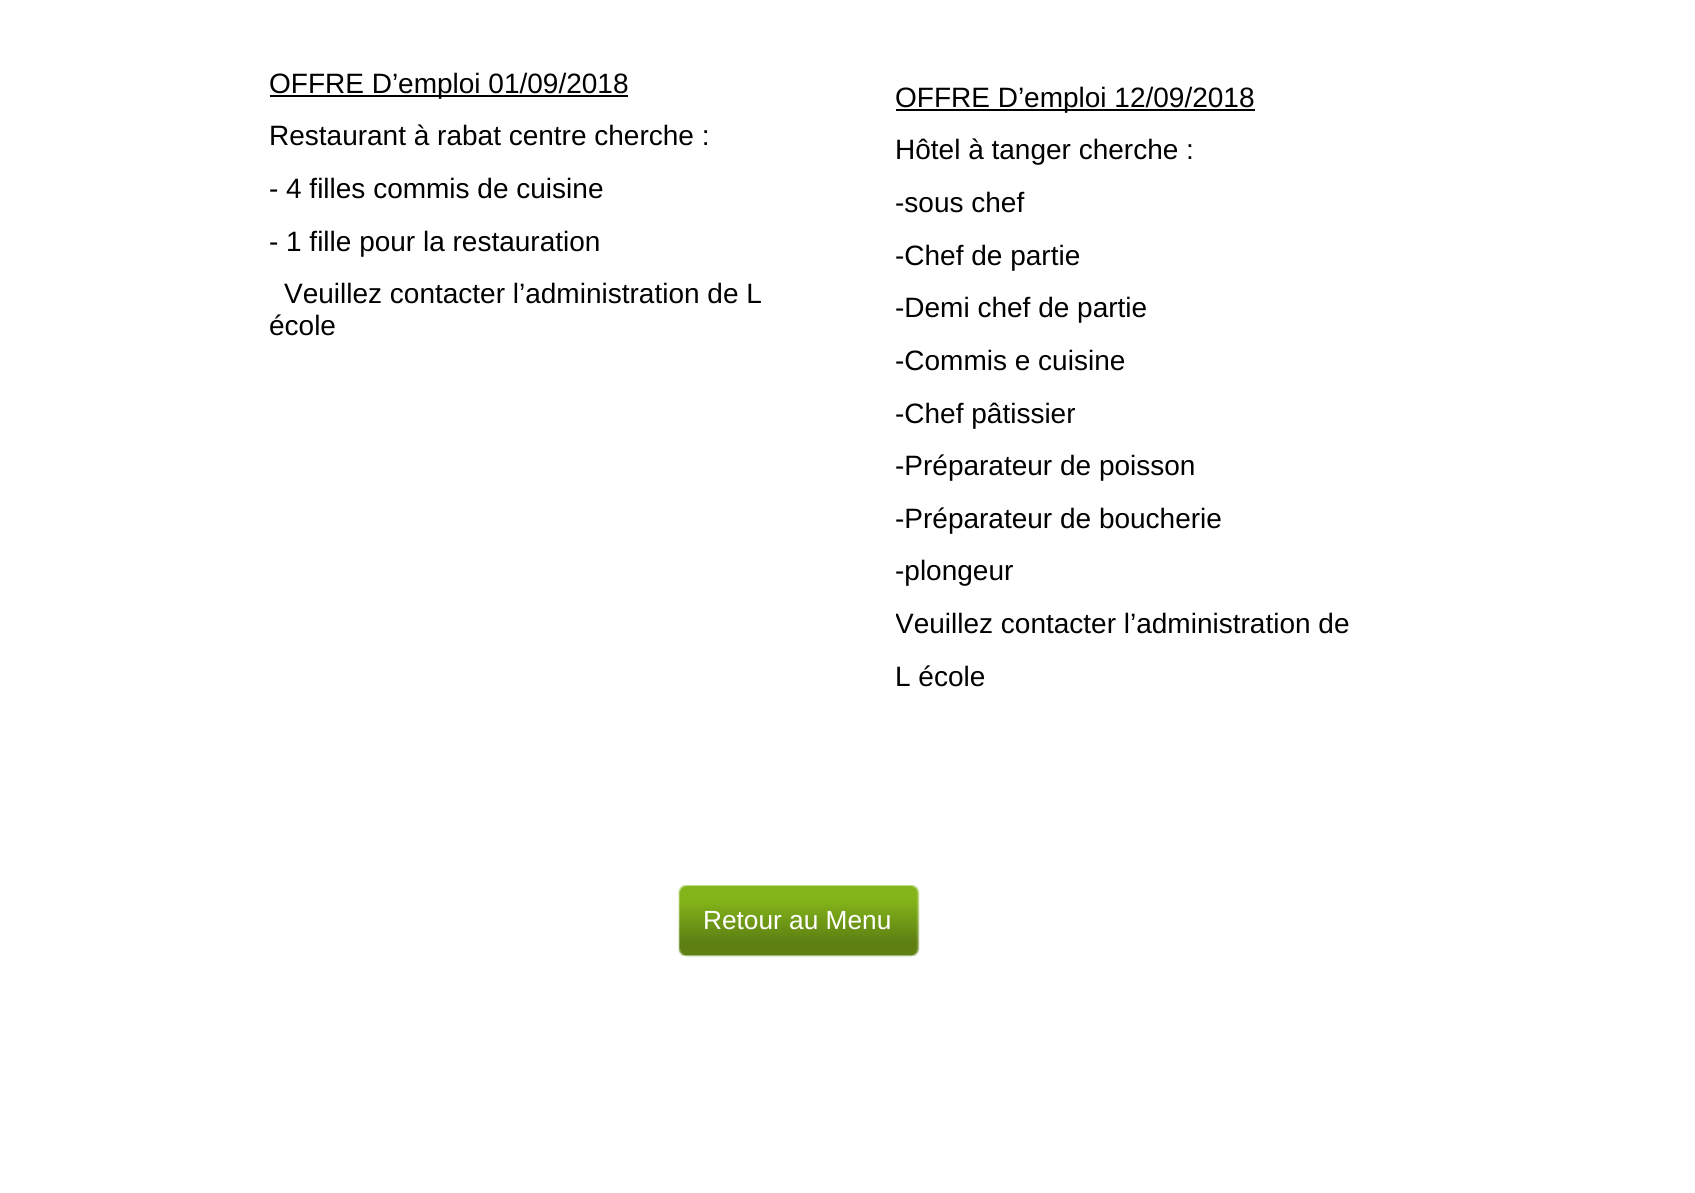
#include <cairo.h>
#include <math.h>
#include <stddef.h>


static void picture(cairo_t *cr, const char *path, double x, double y, double w, double h) {
    cairo_surface_t *image = cairo_image_surface_create_from_png(path);
    cairo_save(cr);
    cairo_set_source_surface(cr, image, x, y);
    cairo_rectangle(cr, x, y, w, h);
    cairo_fill(cr);
    cairo_restore(cr);
    cairo_surface_destroy(image);
}

int main(void) {
    cairo_surface_t *surface = cairo_image_surface_create(CAIRO_FORMAT_RGB24, 1695, 1193);
    cairo_t *cr = cairo_create(surface);
    cairo_font_options_t *options = cairo_font_options_create();
    cairo_font_options_set_hint_metrics(options, CAIRO_HINT_METRICS_OFF);
    cairo_font_options_set_hint_style(options, CAIRO_HINT_STYLE_NONE);
    cairo_set_font_options(cr, options);
    cairo_set_miter_limit(cr, 4);
    cairo_set_source_rgb(cr, 1, 1, 1);
    cairo_paint(cr);
    cairo_set_source_rgb(cr, 0, 0, 0);
    cairo_rectangle(cr, 270, 95, 358, 2);
    cairo_fill(cr);
    cairo_select_font_face(cr, "Liberation Sans", CAIRO_FONT_SLANT_NORMAL, CAIRO_FONT_WEIGHT_NORMAL);
    cairo_set_font_size(cr, 28);
    cairo_move_to(cr, 269, 93);
    cairo_show_text(cr, "OFFRE D’emploi 01/09/2018");
    cairo_move_to(cr, 269, 145);
    cairo_show_text(cr, "Restaurant à rabat centre cherche :");
    cairo_save(cr);
    cairo_rectangle(cr, 270, 68, 551, 671);
    cairo_clip(cr);
    cairo_move_to(cr, 269, 198);
    cairo_show_text(cr, "-");
    cairo_restore(cr);
    cairo_move_to(cr, 286, 198);
    cairo_show_text(cr, "4 filles commis de cuisine");
    cairo_save(cr);
    cairo_rectangle(cr, 270, 68, 551, 671);
    cairo_clip(cr);
    cairo_move_to(cr, 269, 251);
    cairo_show_text(cr, "-");
    cairo_restore(cr);
    cairo_move_to(cr, 286, 251);
    cairo_show_text(cr, "1 fille pour la restauration");
    cairo_move_to(cr, 284, 303);
    cairo_show_text(cr, "Veuillez contacter l’administration de L");
    cairo_save(cr);
    cairo_rectangle(cr, 270, 68, 551, 671);
    cairo_clip(cr);
    cairo_move_to(cr, 269, 335);
    cairo_show_text(cr, "école");
    cairo_restore(cr);
    cairo_rectangle(cr, 896, 109, 359, 2);
    cairo_fill(cr);
    cairo_move_to(cr, 895, 107);
    cairo_show_text(cr, "OFFRE D’emploi 12/09/2018");
    cairo_move_to(cr, 895, 159);
    cairo_show_text(cr, "Hôtel à tanger cherche :");
    cairo_move_to(cr, 895, 212);
    cairo_show_text(cr, "-sous chef");
    cairo_move_to(cr, 895, 265);
    cairo_show_text(cr, "-Chef de partie");
    cairo_move_to(cr, 895, 317);
    cairo_show_text(cr, "-Demi chef de partie");
    cairo_move_to(cr, 895, 370);
    cairo_show_text(cr, "-Commis e cuisine");
    cairo_move_to(cr, 895, 423);
    cairo_show_text(cr, "-Chef pâtissier");
    cairo_move_to(cr, 895, 475);
    cairo_show_text(cr, "-Préparateur de poisson");
    cairo_move_to(cr, 895, 528);
    cairo_show_text(cr, "-Préparateur de boucherie");
    cairo_move_to(cr, 895, 580);
    cairo_show_text(cr, "-plongeur");
    cairo_save(cr);
    cairo_rectangle(cr, 896, 82, 551, 671);
    cairo_clip(cr);
    cairo_move_to(cr, 895, 633);
    cairo_show_text(cr, "Veuillez contacter l’administration de");
    cairo_restore(cr);
    cairo_move_to(cr, 895, 686);
    cairo_show_text(cr, "L école");
    picture(cr, "img1.png", 678, 885, 242, 73);
    cairo_set_font_size(cr, 26.25);
    cairo_set_source_rgb(cr, 1, 1, 1);
    cairo_move_to(cr, 703, 929);
    cairo_show_text(cr, "Retour au Menu");
    cairo_surface_write_to_png(surface, "page.png");
    cairo_font_options_destroy(options);
    cairo_destroy(cr);
    cairo_surface_destroy(surface);
    return 0;
}
